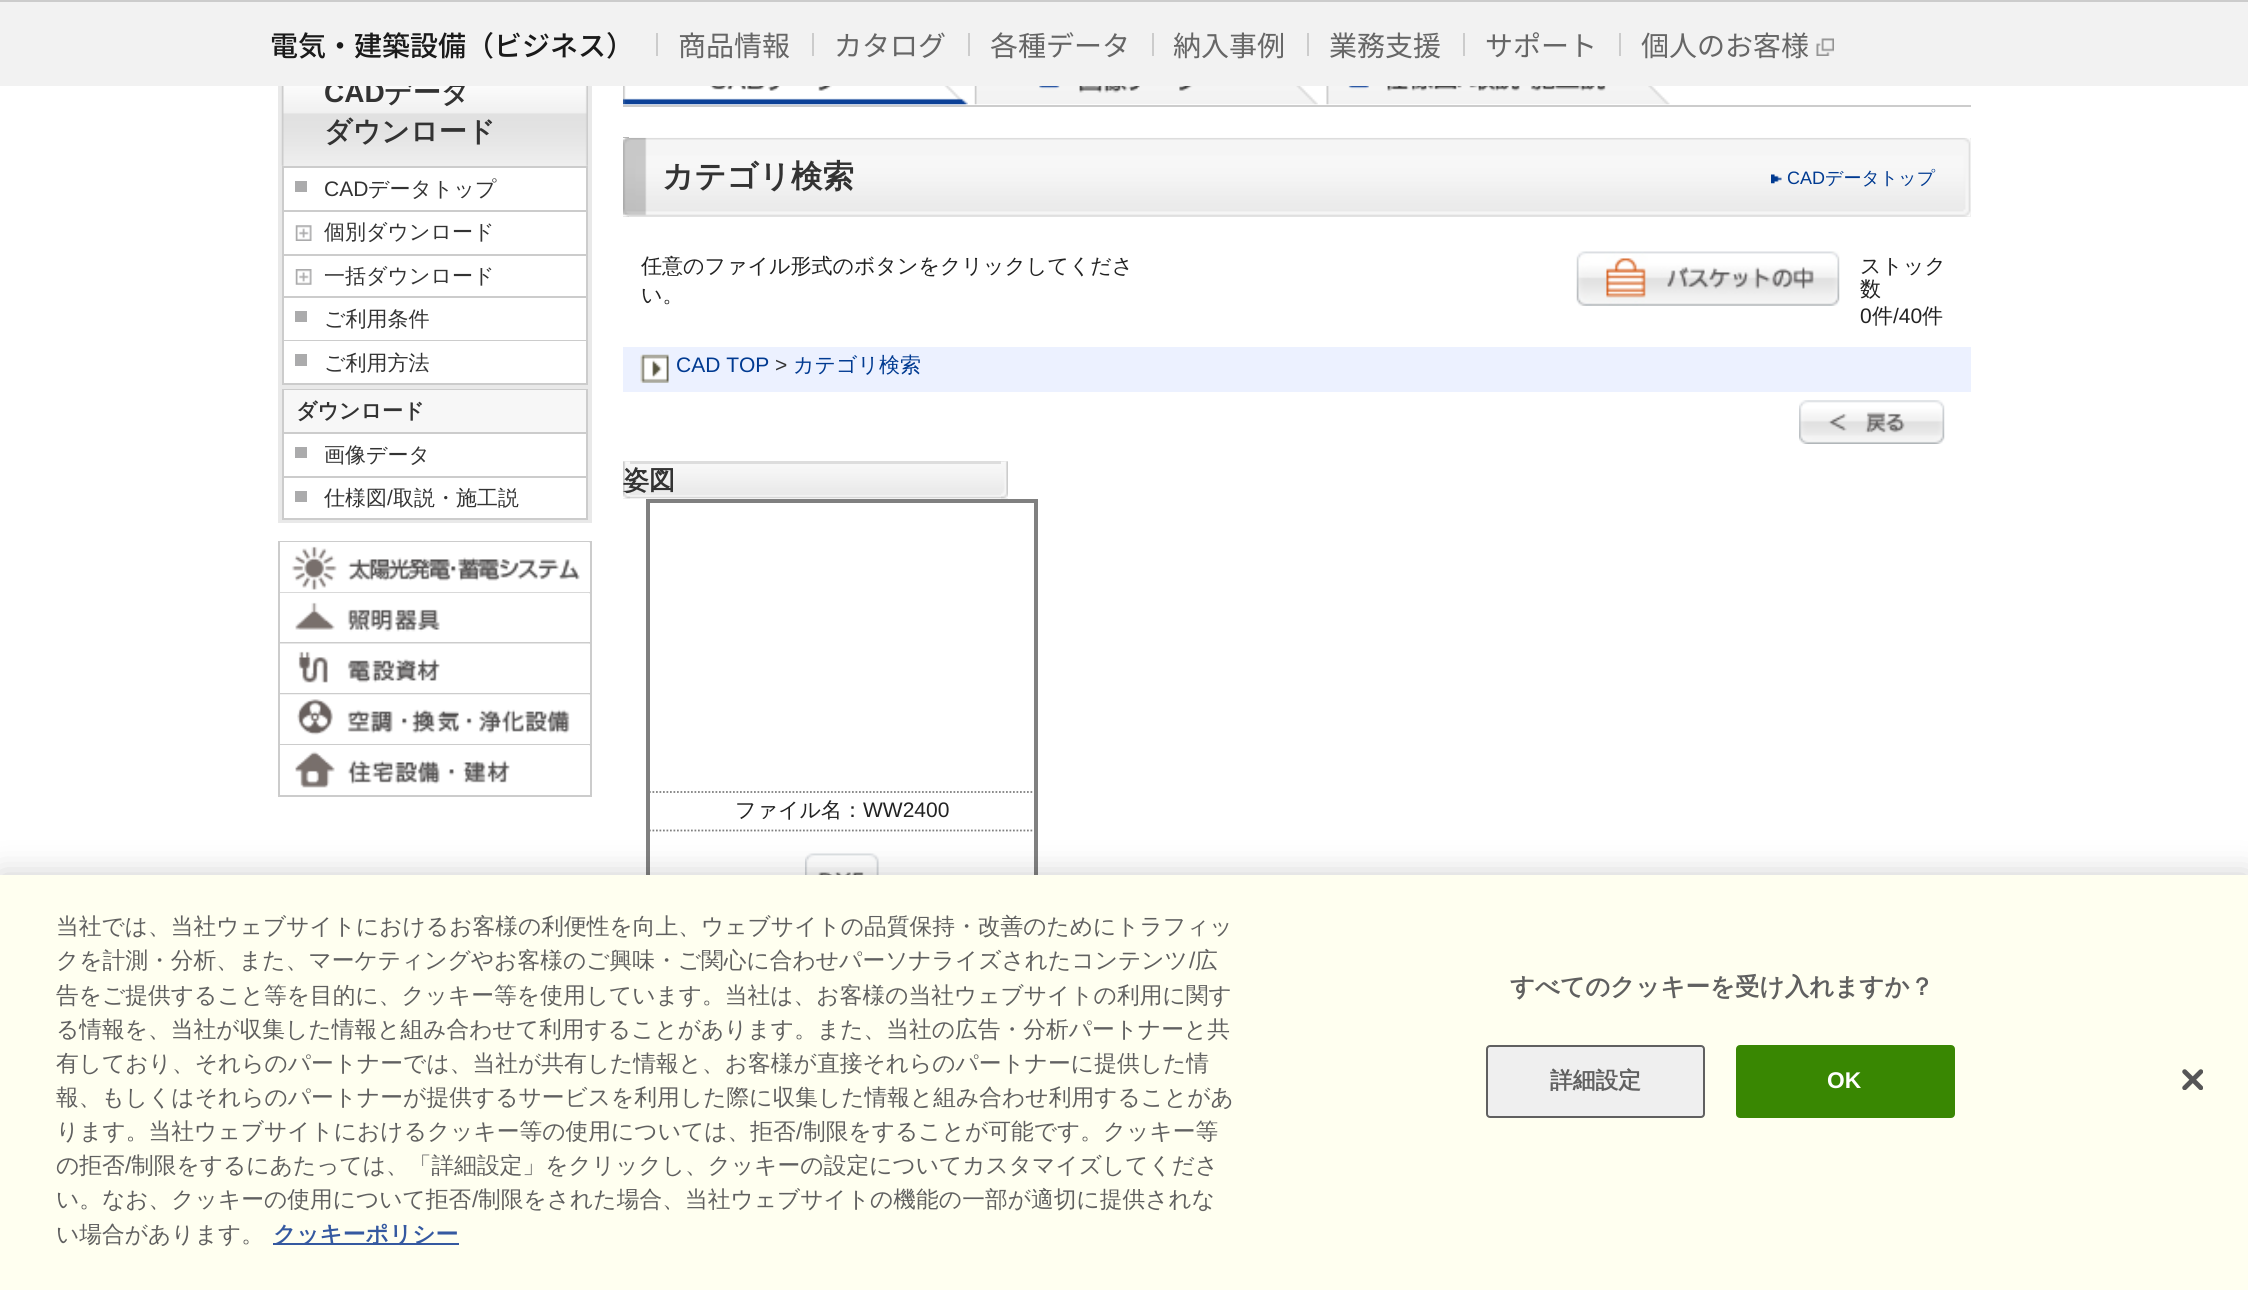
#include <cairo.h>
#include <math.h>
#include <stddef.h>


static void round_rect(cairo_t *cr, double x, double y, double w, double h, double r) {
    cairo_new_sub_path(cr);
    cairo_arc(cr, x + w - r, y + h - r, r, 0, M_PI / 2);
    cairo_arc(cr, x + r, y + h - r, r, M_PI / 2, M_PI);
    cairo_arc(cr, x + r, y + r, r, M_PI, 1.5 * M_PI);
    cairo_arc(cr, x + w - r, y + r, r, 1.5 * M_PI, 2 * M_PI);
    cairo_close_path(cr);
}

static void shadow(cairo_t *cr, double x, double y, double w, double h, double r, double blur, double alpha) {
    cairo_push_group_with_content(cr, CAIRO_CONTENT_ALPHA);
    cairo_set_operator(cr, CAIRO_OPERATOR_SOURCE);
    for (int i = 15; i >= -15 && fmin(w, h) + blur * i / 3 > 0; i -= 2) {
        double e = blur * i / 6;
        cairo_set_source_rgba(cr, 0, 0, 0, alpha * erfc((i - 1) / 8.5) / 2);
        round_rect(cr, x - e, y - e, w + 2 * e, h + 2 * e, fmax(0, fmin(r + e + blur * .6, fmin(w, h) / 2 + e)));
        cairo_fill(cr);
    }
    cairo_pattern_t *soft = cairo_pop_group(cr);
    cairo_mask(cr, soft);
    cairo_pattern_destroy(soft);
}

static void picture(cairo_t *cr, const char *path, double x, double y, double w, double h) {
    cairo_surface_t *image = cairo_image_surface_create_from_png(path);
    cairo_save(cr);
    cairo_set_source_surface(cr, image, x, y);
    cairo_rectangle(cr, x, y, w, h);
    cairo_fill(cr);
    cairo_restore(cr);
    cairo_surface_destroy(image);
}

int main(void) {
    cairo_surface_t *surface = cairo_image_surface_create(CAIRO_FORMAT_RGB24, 2248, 1290);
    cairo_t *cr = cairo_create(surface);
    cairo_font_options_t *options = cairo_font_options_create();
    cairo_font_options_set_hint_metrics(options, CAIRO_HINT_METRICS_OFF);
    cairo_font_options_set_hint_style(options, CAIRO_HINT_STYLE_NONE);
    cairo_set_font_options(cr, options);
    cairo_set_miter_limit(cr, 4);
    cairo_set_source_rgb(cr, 1, 1, 1);
    cairo_paint(cr);
    cairo_set_source_rgb(cr, 0.914, 0.914, 0.914);
    cairo_rectangle(cr, 278, 86, 314, 437);
    cairo_fill(cr);
    picture(cr, "img2.png", 281, 86, 307, 80);
    cairo_select_font_face(cr, "Liberation Sans", CAIRO_FONT_SLANT_NORMAL, CAIRO_FONT_WEIGHT_BOLD);
    cairo_set_font_size(cr, 28);
    cairo_set_source_rgb(cr, 0.2, 0.2, 0.2);
    cairo_move_to(cr, 324, 102);
    cairo_show_text(cr, "CAD");
    cairo_select_font_face(cr, "WenQuanYi Zen Hei", CAIRO_FONT_SLANT_NORMAL, CAIRO_FONT_WEIGHT_BOLD);
    cairo_move_to(cr, 384, 102);
    cairo_show_text(cr, "データ");
    cairo_set_source_rgb(cr, 0.949, 0.949, 0.949);
    cairo_rectangle(cr, 0, 2, 2248, 84);
    cairo_fill(cr);
    cairo_set_source_rgb(cr, 0.8, 0.8, 0.8);
    cairo_rectangle(cr, 0, 0, 2248, 2);
    cairo_fill(cr);
    cairo_select_font_face(cr, "Noto Sans JP Medium", CAIRO_FONT_SLANT_NORMAL, CAIRO_FONT_WEIGHT_NORMAL);
    cairo_set_source_rgb(cr, 0.102, 0.102, 0.102);
    cairo_move_to(cr, 270, 56);
    cairo_show_text(cr, "電気・建築設備（ビジネス）");
    cairo_set_source_rgb(cr, 0.8, 0.8, 0.8);
    cairo_rectangle(cr, 656, 33, 2, 23);
    cairo_fill(cr);
    cairo_select_font_face(cr, "Noto Sans JP", CAIRO_FONT_SLANT_NORMAL, CAIRO_FONT_WEIGHT_NORMAL);
    cairo_set_source_rgb(cr, 0.4, 0.4, 0.4);
    cairo_move_to(cr, 678, 56);
    cairo_show_text(cr, "商品情報");
    cairo_set_source_rgb(cr, 0.8, 0.8, 0.8);
    cairo_rectangle(cr, 812, 33, 2, 23);
    cairo_fill(cr);
    cairo_set_source_rgb(cr, 0.4, 0.4, 0.4);
    cairo_move_to(cr, 834, 56);
    cairo_show_text(cr, "カタログ");
    cairo_set_source_rgb(cr, 0.8, 0.8, 0.8);
    cairo_rectangle(cr, 968, 33, 2, 23);
    cairo_fill(cr);
    cairo_set_source_rgb(cr, 0.4, 0.4, 0.4);
    cairo_move_to(cr, 990, 56);
    cairo_show_text(cr, "各種データ");
    cairo_set_source_rgb(cr, 0.8, 0.8, 0.8);
    cairo_rectangle(cr, 1152, 33, 2, 23);
    cairo_fill(cr);
    cairo_set_source_rgb(cr, 0.4, 0.4, 0.4);
    cairo_move_to(cr, 1173, 56);
    cairo_show_text(cr, "納入事例");
    cairo_set_source_rgb(cr, 0.8, 0.8, 0.8);
    cairo_rectangle(cr, 1307, 33, 2, 23);
    cairo_fill(cr);
    cairo_set_source_rgb(cr, 0.4, 0.4, 0.4);
    cairo_move_to(cr, 1329, 56);
    cairo_show_text(cr, "業務支援");
    cairo_set_source_rgb(cr, 0.8, 0.8, 0.8);
    cairo_rectangle(cr, 1463, 33, 2, 23);
    cairo_fill(cr);
    cairo_set_source_rgb(cr, 0.4, 0.4, 0.4);
    cairo_move_to(cr, 1485, 56);
    cairo_show_text(cr, "サポート");
    cairo_set_source_rgb(cr, 0.8, 0.8, 0.8);
    cairo_rectangle(cr, 1619, 33, 2, 23);
    cairo_fill(cr);
    cairo_set_source_rgb(cr, 0.4, 0.4, 0.4);
    cairo_move_to(cr, 1641, 56);
    cairo_show_text(cr, "個人のお客様");
    picture(cr, "img1.png", 1816, 38, 18, 18);
    cairo_select_font_face(cr, "WenQuanYi Zen Hei", CAIRO_FONT_SLANT_NORMAL, CAIRO_FONT_WEIGHT_BOLD);
    cairo_set_source_rgb(cr, 0.2, 0.2, 0.2);
    cairo_move_to(cr, 324, 141);
    cairo_show_text(cr, "ダウンロード");
    cairo_set_source_rgb(cr, 0.8, 0.8, 0.8);
    cairo_rectangle(cr, 282, 166, 306, 2);
    cairo_fill(cr);
    cairo_rectangle(cr, 586, 168, 2, 217);
    cairo_fill(cr);
    cairo_rectangle(cr, 282, 210, 306, 2);
    cairo_fill(cr);
    cairo_rectangle(cr, 282, 168, 2, 44);
    cairo_fill(cr);
    cairo_set_source_rgb(cr, 1, 1, 1);
    cairo_rectangle(cr, 284, 168, 302, 42);
    cairo_fill(cr);
    cairo_set_source_rgb(cr, 0.671, 0.671, 0.675);
    cairo_rectangle(cr, 295, 181, 12, 11);
    cairo_fill(cr);
    cairo_select_font_face(cr, "Liberation Sans", CAIRO_FONT_SLANT_NORMAL, CAIRO_FONT_WEIGHT_NORMAL);
    cairo_set_font_size(cr, 21);
    cairo_set_source_rgb(cr, 0.2, 0.2, 0.2);
    cairo_move_to(cr, 324, 196);
    cairo_show_text(cr, "CAD");
    cairo_select_font_face(cr, "WenQuanYi Zen Hei Medium", CAIRO_FONT_SLANT_NORMAL, CAIRO_FONT_WEIGHT_NORMAL);
    cairo_move_to(cr, 368, 196);
    cairo_show_text(cr, "データトップ");
    cairo_set_source_rgb(cr, 0.8, 0.8, 0.8);
    cairo_rectangle(cr, 282, 254, 306, 2);
    cairo_fill(cr);
    cairo_rectangle(cr, 282, 212, 2, 44);
    cairo_fill(cr);
    cairo_set_source_rgb(cr, 1, 1, 1);
    cairo_rectangle(cr, 284, 212, 302, 42);
    cairo_fill(cr);
    picture(cr, "img3.png", 295, 225, 17, 16);
    cairo_set_source_rgb(cr, 0.2, 0.2, 0.2);
    cairo_move_to(cr, 324, 239);
    cairo_show_text(cr, "個別ダウンロード");
    cairo_set_source_rgb(cr, 0.8, 0.8, 0.8);
    cairo_rectangle(cr, 282, 296, 306, 2);
    cairo_fill(cr);
    cairo_rectangle(cr, 282, 256, 2, 42);
    cairo_fill(cr);
    cairo_set_source_rgb(cr, 1, 1, 1);
    cairo_rectangle(cr, 284, 256, 302, 40);
    cairo_fill(cr);
    picture(cr, "img4.png", 295, 269, 17, 16);
    cairo_set_source_rgb(cr, 0.2, 0.2, 0.2);
    cairo_move_to(cr, 324, 283);
    cairo_show_text(cr, "一括ダウンロード");
    cairo_set_source_rgb(cr, 0.8, 0.8, 0.8);
    cairo_rectangle(cr, 282, 340, 306, 1);
    cairo_fill(cr);
    cairo_rectangle(cr, 282, 298, 2, 43);
    cairo_fill(cr);
    cairo_set_source_rgb(cr, 1, 1, 1);
    cairo_rectangle(cr, 284, 298, 302, 42);
    cairo_fill(cr);
    cairo_set_source_rgb(cr, 0.671, 0.671, 0.675);
    cairo_rectangle(cr, 295, 311, 12, 11);
    cairo_fill(cr);
    cairo_set_source_rgb(cr, 0.2, 0.2, 0.2);
    cairo_move_to(cr, 324, 326);
    cairo_show_text(cr, "ご利用条件");
    cairo_set_source_rgb(cr, 0.8, 0.8, 0.8);
    cairo_rectangle(cr, 282, 383, 306, 2);
    cairo_fill(cr);
    cairo_rectangle(cr, 282, 341, 2, 44);
    cairo_fill(cr);
    cairo_set_source_rgb(cr, 1, 1, 1);
    cairo_rectangle(cr, 284, 341, 302, 42);
    cairo_fill(cr);
    cairo_set_source_rgb(cr, 0.671, 0.671, 0.675);
    cairo_rectangle(cr, 295, 354, 12, 12);
    cairo_fill(cr);
    cairo_set_source_rgb(cr, 0.2, 0.2, 0.2);
    cairo_move_to(cr, 324, 370);
    cairo_show_text(cr, "ご利用方法");
    cairo_set_source_rgb(cr, 0.8, 0.8, 0.8);
    cairo_rectangle(cr, 282, 389, 306, 1);
    cairo_fill(cr);
    cairo_set_source_rgb(cr, 0.965, 0.965, 0.965);
    cairo_rectangle(cr, 284, 390, 302, 42);
    cairo_fill(cr);
    cairo_set_source_rgb(cr, 0.8, 0.8, 0.8);
    cairo_rectangle(cr, 586, 390, 2, 130);
    cairo_fill(cr);
    cairo_rectangle(cr, 282, 432, 306, 2);
    cairo_fill(cr);
    cairo_rectangle(cr, 282, 390, 2, 44);
    cairo_fill(cr);
    cairo_select_font_face(cr, "WenQuanYi Zen Hei", CAIRO_FONT_SLANT_NORMAL, CAIRO_FONT_WEIGHT_BOLD);
    cairo_set_source_rgb(cr, 0.2, 0.2, 0.2);
    cairo_move_to(cr, 296, 418);
    cairo_show_text(cr, "ダウンロード");
    cairo_set_source_rgb(cr, 0.8, 0.8, 0.8);
    cairo_rectangle(cr, 282, 476, 306, 2);
    cairo_fill(cr);
    cairo_rectangle(cr, 282, 434, 2, 44);
    cairo_fill(cr);
    cairo_set_source_rgb(cr, 1, 1, 1);
    cairo_rectangle(cr, 284, 434, 302, 42);
    cairo_fill(cr);
    cairo_set_source_rgb(cr, 0.671, 0.671, 0.675);
    cairo_rectangle(cr, 295, 447, 12, 11);
    cairo_fill(cr);
    cairo_select_font_face(cr, "WenQuanYi Zen Hei Medium", CAIRO_FONT_SLANT_NORMAL, CAIRO_FONT_WEIGHT_NORMAL);
    cairo_set_source_rgb(cr, 0.2, 0.2, 0.2);
    cairo_move_to(cr, 324, 462);
    cairo_show_text(cr, "画像データ");
    cairo_set_source_rgb(cr, 0.8, 0.8, 0.8);
    cairo_rectangle(cr, 282, 518, 306, 2);
    cairo_fill(cr);
    cairo_rectangle(cr, 282, 478, 2, 42);
    cairo_fill(cr);
    cairo_set_source_rgb(cr, 1, 1, 1);
    cairo_rectangle(cr, 284, 478, 302, 40);
    cairo_fill(cr);
    cairo_set_source_rgb(cr, 0.671, 0.671, 0.675);
    cairo_rectangle(cr, 295, 491, 12, 11);
    cairo_fill(cr);
    cairo_set_source_rgb(cr, 0.2, 0.2, 0.2);
    cairo_move_to(cr, 324, 505);
    cairo_show_text(cr, "仕様図");
    cairo_select_font_face(cr, "Liberation Sans", CAIRO_FONT_SLANT_NORMAL, CAIRO_FONT_WEIGHT_NORMAL);
    cairo_move_to(cr, 387, 505);
    cairo_show_text(cr, "/");
    cairo_select_font_face(cr, "WenQuanYi Zen Hei Medium", CAIRO_FONT_SLANT_NORMAL, CAIRO_FONT_WEIGHT_NORMAL);
    cairo_move_to(cr, 393, 505);
    cairo_show_text(cr, "取説・施工説");
    cairo_set_source_rgb(cr, 0.8, 0.8, 0.8);
    cairo_rectangle(cr, 278, 541, 314, 2);
    cairo_fill(cr);
    cairo_rectangle(cr, 590, 543, 2, 50);
    cairo_fill(cr);
    cairo_rectangle(cr, 278, 592, 314, 2);
    cairo_fill(cr);
    cairo_rectangle(cr, 278, 543, 2, 50);
    cairo_fill(cr);
    picture(cr, "img5.png", 280, 542, 310, 48);
    cairo_rectangle(cr, 590, 593, 2, 203);
    cairo_fill(cr);
    cairo_rectangle(cr, 278, 642, 314, 2);
    cairo_fill(cr);
    cairo_rectangle(cr, 278, 593, 2, 51);
    cairo_fill(cr);
    picture(cr, "img6.png", 280, 592, 310, 40);
    cairo_rectangle(cr, 278, 693, 314, 2);
    cairo_fill(cr);
    cairo_rectangle(cr, 278, 644, 2, 51);
    cairo_fill(cr);
    picture(cr, "img7.png", 280, 643, 310, 40);
    cairo_rectangle(cr, 278, 744, 314, 2);
    cairo_fill(cr);
    cairo_rectangle(cr, 278, 695, 2, 51);
    cairo_fill(cr);
    picture(cr, "img8.png", 280, 694, 310, 41);
    cairo_rectangle(cr, 278, 795, 314, 2);
    cairo_fill(cr);
    cairo_rectangle(cr, 278, 746, 2, 50);
    cairo_fill(cr);
    picture(cr, "img9.png", 280, 745, 310, 43);
    cairo_rectangle(cr, 623, 105, 1348, 2);
    cairo_fill(cr);
    picture(cr, "img10.png", 623, 86, 345, 19);
    picture(cr, "img11.png", 974, 86, 344, 19);
    picture(cr, "img12.png", 1326, 86, 344, 19);
    cairo_set_source_rgb(cr, 0.961, 0.961, 0.961);
    cairo_rectangle(cr, 629, 138, 1342, 79);
    cairo_fill(cr);
    picture(cr, "img13.png", 629, 188, 1342, 29);
    picture(cr, "img14.png", 1970, 138, 1, 2);
    cairo_set_source_rgb(cr, 0.784, 0.784, 0.784);
    cairo_rectangle(cr, 623, 216, 6, 1);
    cairo_fill(cr);
    cairo_set_source_rgb(cr, 0.702, 0.702, 0.702);
    cairo_rectangle(cr, 623, 137, 6, 1);
    cairo_fill(cr);
    picture(cr, "img15.png", 623, 216, 6, 1);
    picture(cr, "img16.png", 623, 137, 1348, 80);
    cairo_select_font_face(cr, "WenQuanYi Zen Hei", CAIRO_FONT_SLANT_NORMAL, CAIRO_FONT_WEIGHT_BOLD);
    cairo_set_font_size(cr, 31.5);
    cairo_set_source_rgb(cr, 0.2, 0.2, 0.2);
    cairo_move_to(cr, 662, 187);
    cairo_show_text(cr, "カテゴリ検索");
    picture(cr, "img17.png", 1771, 174, 11, 10);
    cairo_select_font_face(cr, "Liberation Sans", CAIRO_FONT_SLANT_NORMAL, CAIRO_FONT_WEIGHT_NORMAL);
    cairo_set_font_size(cr, 18);
    cairo_set_source_rgb(cr, 0, 0.227, 0.569);
    cairo_move_to(cr, 1787, 184);
    cairo_show_text(cr, "CAD");
    cairo_select_font_face(cr, "WenQuanYi Zen Hei Medium", CAIRO_FONT_SLANT_NORMAL, CAIRO_FONT_WEIGHT_NORMAL);
    cairo_move_to(cr, 1825, 184);
    cairo_show_text(cr, "データトップ");
    cairo_set_font_size(cr, 21);
    cairo_set_source_rgb(cr, 0.133, 0.133, 0.133);
    cairo_move_to(cr, 641, 273);
    cairo_show_text(cr, "任意のファイル形式のボタンをクリックしてくださ");
    cairo_move_to(cr, 641, 302);
    cairo_show_text(cr, "い。");
    picture(cr, "img18.png", 1576, 251, 264, 55);
    cairo_move_to(cr, 1860, 273);
    cairo_show_text(cr, "ストック");
    cairo_move_to(cr, 1860, 296);
    cairo_show_text(cr, "数");
    cairo_select_font_face(cr, "Liberation Sans", CAIRO_FONT_SLANT_NORMAL, CAIRO_FONT_WEIGHT_NORMAL);
    cairo_move_to(cr, 1860, 323);
    cairo_show_text(cr, "0");
    cairo_select_font_face(cr, "WenQuanYi Zen Hei Medium", CAIRO_FONT_SLANT_NORMAL, CAIRO_FONT_WEIGHT_NORMAL);
    cairo_move_to(cr, 1872, 323);
    cairo_show_text(cr, "件");
    cairo_select_font_face(cr, "Liberation Sans", CAIRO_FONT_SLANT_NORMAL, CAIRO_FONT_WEIGHT_NORMAL);
    cairo_move_to(cr, 1893, 323);
    cairo_show_text(cr, "/40");
    cairo_select_font_face(cr, "WenQuanYi Zen Hei Medium", CAIRO_FONT_SLANT_NORMAL, CAIRO_FONT_WEIGHT_NORMAL);
    cairo_move_to(cr, 1922, 323);
    cairo_show_text(cr, "件");
    cairo_set_source_rgb(cr, 0.925, 0.945, 1);
    cairo_rectangle(cr, 623, 347, 1348, 45);
    cairo_fill(cr);
    picture(cr, "img19.png", 640, 354, 29, 29);
    cairo_select_font_face(cr, "Liberation Sans", CAIRO_FONT_SLANT_NORMAL, CAIRO_FONT_WEIGHT_NORMAL);
    cairo_set_source_rgb(cr, 0, 0.227, 0.569);
    cairo_move_to(cr, 676, 372);
    cairo_show_text(cr, "CAD TOP");
    cairo_set_source_rgb(cr, 0.2, 0.2, 0.2);
    cairo_move_to(cr, 775, 372);
    cairo_show_text(cr, ">");
    cairo_select_font_face(cr, "WenQuanYi Zen Hei Medium", CAIRO_FONT_SLANT_NORMAL, CAIRO_FONT_WEIGHT_NORMAL);
    cairo_set_source_rgb(cr, 0, 0.227, 0.569);
    cairo_move_to(cr, 793, 372);
    cairo_show_text(cr, "カテゴリ検索");
    picture(cr, "img20.png", 1799, 400, 146, 44);
    picture(cr, "img21.png", 623, 464, 385, 35);
    cairo_set_source_rgb(cr, 0.867, 0.867, 0.867);
    cairo_rectangle(cr, 623, 461, 385, 3);
    cairo_fill(cr);
    picture(cr, "img22.png", 1006, 498, 2, 1);
    picture(cr, "img23.png", 623, 498, 2, 1);
    picture(cr, "img24.png", 623, 461, 4, 1);
    picture(cr, "img25.png", 1004, 461, 4, 1);
    picture(cr, "img26.png", 1001, 461, 7, 38);
    picture(cr, "img27.png", 623, 461, 7, 38);
    cairo_select_font_face(cr, "WenQuanYi Zen Hei", CAIRO_FONT_SLANT_NORMAL, CAIRO_FONT_WEIGHT_BOLD);
    cairo_set_font_size(cr, 26);
    cairo_set_source_rgb(cr, 0.2, 0.2, 0.2);
    cairo_move_to(cr, 623, 489);
    cairo_show_text(cr, "姿図");
    cairo_rectangle(cr, 648, 501, 388, 432);
    cairo_set_source_rgb(cr, 0.502, 0.502, 0.502);
    cairo_set_line_width(cr, 4);
    cairo_stroke(cr);
    cairo_new_path(cr);
    cairo_move_to(cr, 649, 792);
    cairo_line_to(cr, 1034, 792);
    cairo_set_line_width(cr, 1.8);
    cairo_set_dash(cr, (double[]){1.75, 1.75}, 2, 0);
    cairo_stroke(cr);
    cairo_new_path(cr);
    cairo_move_to(cr, 649, 830.5);
    cairo_line_to(cr, 1034, 830.5);
    cairo_stroke(cr);
    cairo_select_font_face(cr, "WenQuanYi Zen Hei Medium", CAIRO_FONT_SLANT_NORMAL, CAIRO_FONT_WEIGHT_NORMAL);
    cairo_set_font_size(cr, 21);
    cairo_set_source_rgb(cr, 0.133, 0.133, 0.133);
    cairo_move_to(cr, 735, 817);
    cairo_show_text(cr, "ファイル名：");
    cairo_select_font_face(cr, "Liberation Sans", CAIRO_FONT_SLANT_NORMAL, CAIRO_FONT_WEIGHT_NORMAL);
    cairo_move_to(cr, 863, 817);
    cairo_show_text(cr, "WW2400");
    picture(cr, "img28.png", 805, 853, 74, 22);
    cairo_set_source_rgb(cr, 0, 0, 0);
    shadow(cr, 0, 875, 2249, 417, 0, 16, 0.2);
    cairo_set_source_rgb(cr, 1, 1, 0.941);
    cairo_rectangle(cr, 0, 875, 2248, 415);
    cairo_fill(cr);
    cairo_select_font_face(cr, "WenQuanYi Zen Hei Medium", CAIRO_FONT_SLANT_NORMAL, CAIRO_FONT_WEIGHT_NORMAL);
    cairo_set_font_size(cr, 22.75);
    cairo_set_source_rgb(cr, 0.376, 0.376, 0.376);
    cairo_move_to(cr, 56, 934);
    cairo_show_text(cr, "当社では、当社ウェブサイトにおけるお客様の利便性を向上、ウェブサイトの品質保持・改善のためにトラフィッ");
    cairo_move_to(cr, 56, 968);
    cairo_show_text(cr, "クを計測・分析、また、マーケティングやお客様のご興味・ご関心に合わせパーソナライズされたコンテンツ");
    cairo_select_font_face(cr, "Liberation Sans", CAIRO_FONT_SLANT_NORMAL, CAIRO_FONT_WEIGHT_NORMAL);
    cairo_move_to(cr, 1189, 968);
    cairo_show_text(cr, "/");
    cairo_select_font_face(cr, "WenQuanYi Zen Hei Medium", CAIRO_FONT_SLANT_NORMAL, CAIRO_FONT_WEIGHT_NORMAL);
    cairo_move_to(cr, 1195, 968);
    cairo_show_text(cr, "広");
    cairo_move_to(cr, 56, 1003);
    cairo_show_text(cr, "告をご提供すること等を目的に、クッキー等を使用しています。当社は、お客様の当社ウェブサイトの利用に関す");
    cairo_move_to(cr, 56, 1037);
    cairo_show_text(cr, "る情報を、当社が収集した情報と組み合わせて利用することがあります。また、当社の広告・分析パートナーと共");
    cairo_move_to(cr, 56, 1071);
    cairo_show_text(cr, "有しており、それらのパートナーでは、当社が共有した情報と、お客様が直接それらのパートナーに提供した情");
    cairo_move_to(cr, 56, 1105);
    cairo_show_text(cr, "報、もしくはそれらのパートナーが提供するサービスを利用した際に収集した情報と組み合わせ利用することがあ");
    cairo_move_to(cr, 56, 1139);
    cairo_show_text(cr, "ります。当社ウェブサイトにおけるクッキー等の使用については、拒否");
    cairo_select_font_face(cr, "Liberation Sans", CAIRO_FONT_SLANT_NORMAL, CAIRO_FONT_WEIGHT_NORMAL);
    cairo_move_to(cr, 796, 1139);
    cairo_show_text(cr, "/");
    cairo_select_font_face(cr, "WenQuanYi Zen Hei Medium", CAIRO_FONT_SLANT_NORMAL, CAIRO_FONT_WEIGHT_NORMAL);
    cairo_move_to(cr, 803, 1139);
    cairo_show_text(cr, "制限をすることが可能です。クッキー等");
    cairo_move_to(cr, 56, 1173);
    cairo_show_text(cr, "の拒否");
    cairo_select_font_face(cr, "Liberation Sans", CAIRO_FONT_SLANT_NORMAL, CAIRO_FONT_WEIGHT_NORMAL);
    cairo_move_to(cr, 125, 1173);
    cairo_show_text(cr, "/");
    cairo_select_font_face(cr, "WenQuanYi Zen Hei Medium", CAIRO_FONT_SLANT_NORMAL, CAIRO_FONT_WEIGHT_NORMAL);
    cairo_move_to(cr, 131, 1173);
    cairo_show_text(cr, "制限をするにあたっては、「詳細設定」をクリックし、クッキーの設定についてカスタマイズしてくださ");
    cairo_move_to(cr, 56, 1207);
    cairo_show_text(cr, "い。なお、クッキーの使用について拒否");
    cairo_select_font_face(cr, "Liberation Sans", CAIRO_FONT_SLANT_NORMAL, CAIRO_FONT_WEIGHT_NORMAL);
    cairo_move_to(cr, 472, 1207);
    cairo_show_text(cr, "/");
    cairo_select_font_face(cr, "WenQuanYi Zen Hei Medium", CAIRO_FONT_SLANT_NORMAL, CAIRO_FONT_WEIGHT_NORMAL);
    cairo_move_to(cr, 478, 1207);
    cairo_show_text(cr, "制限をされた場合、当社ウェブサイトの機能の一部が適切に提供されな");
    cairo_move_to(cr, 56, 1242);
    cairo_show_text(cr, "い場合があります。");
    cairo_set_source_rgb(cr, 0.208, 0.349, 0.627);
    cairo_rectangle(cr, 273, 1243, 186, 2);
    cairo_fill(cr);
    cairo_select_font_face(cr, "WenQuanYi Zen Hei", CAIRO_FONT_SLANT_NORMAL, CAIRO_FONT_WEIGHT_BOLD);
    cairo_move_to(cr, 273, 1242);
    cairo_show_text(cr, "クッキーポリシー");
    cairo_set_font_size(cr, 24.5);
    cairo_set_source_rgb(cr, 0.376, 0.376, 0.376);
    cairo_move_to(cr, 1510, 995);
    cairo_show_text(cr, "すべてのクッキーを受け入れますか？");
    cairo_set_source_rgb(cr, 0.937, 0.937, 0.937);
    round_rect(cr, 1487, 1046, 217, 71, 3);
    cairo_fill_preserve(cr);
    cairo_set_source_rgb(cr, 0.376, 0.376, 0.376);
    cairo_set_line_width(cr, 2);
    cairo_set_dash(cr, NULL, 0, 0);
    cairo_stroke(cr);
    cairo_set_font_size(cr, 22.75);
    cairo_move_to(cr, 1550, 1088);
    cairo_show_text(cr, "詳細設定");
    cairo_set_source_rgb(cr, 0.224, 0.529, 0.008);
    round_rect(cr, 1737, 1046, 217, 71, 3);
    cairo_fill_preserve(cr);
    cairo_stroke(cr);
    cairo_select_font_face(cr, "Liberation Sans", CAIRO_FONT_SLANT_NORMAL, CAIRO_FONT_WEIGHT_BOLD);
    cairo_set_source_rgb(cr, 1, 1, 1);
    cairo_move_to(cr, 1827, 1088);
    cairo_show_text(cr, "OK");
    picture(cr, "img29.png", 2182, 1069, 21, 21);
    cairo_surface_write_to_png(surface, "page.png");
    cairo_font_options_destroy(options);
    cairo_destroy(cr);
    cairo_surface_destroy(surface);
    return 0;
}
